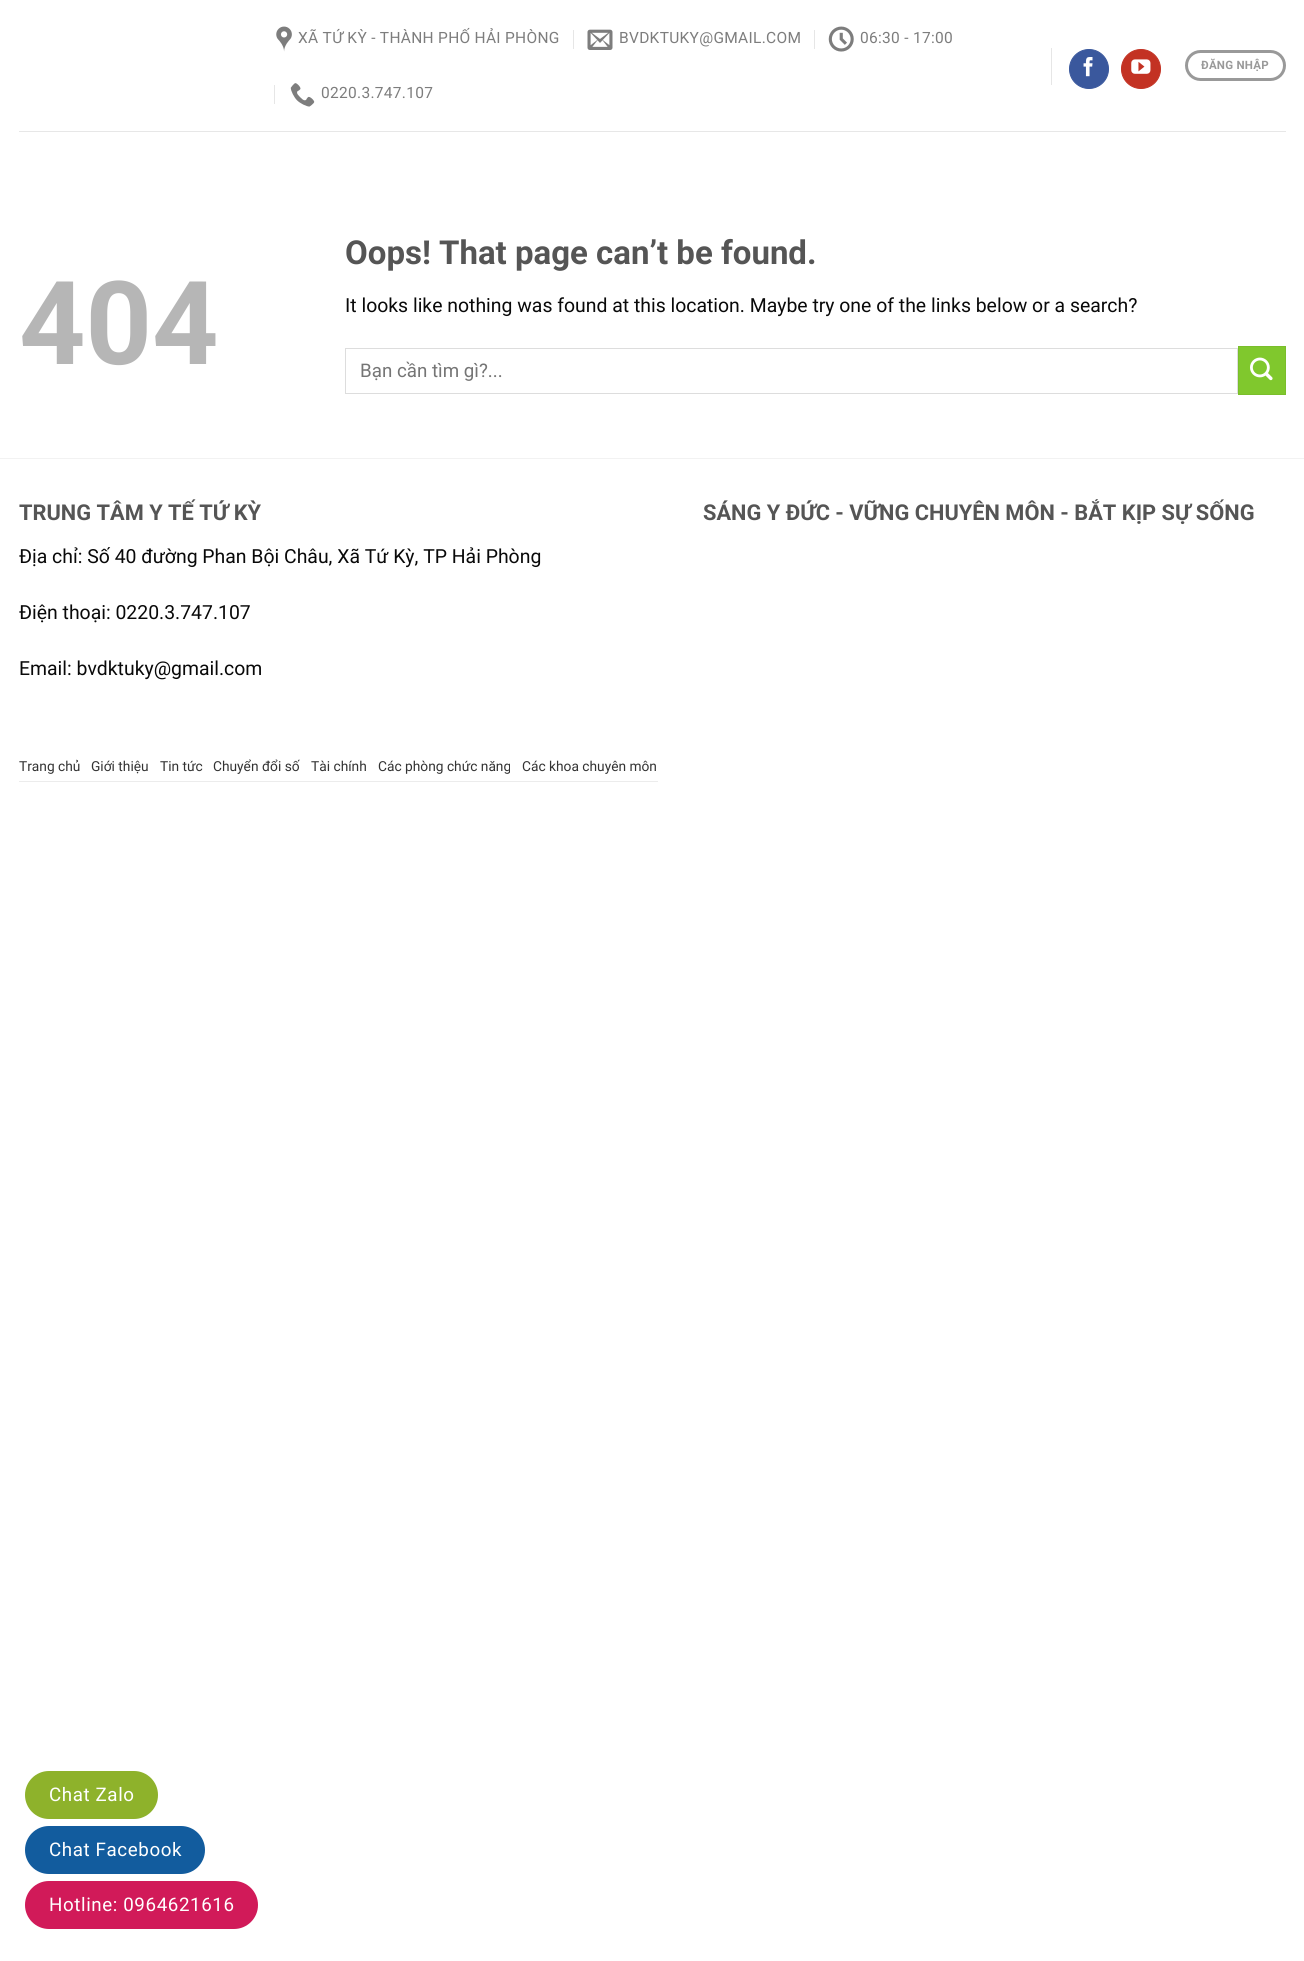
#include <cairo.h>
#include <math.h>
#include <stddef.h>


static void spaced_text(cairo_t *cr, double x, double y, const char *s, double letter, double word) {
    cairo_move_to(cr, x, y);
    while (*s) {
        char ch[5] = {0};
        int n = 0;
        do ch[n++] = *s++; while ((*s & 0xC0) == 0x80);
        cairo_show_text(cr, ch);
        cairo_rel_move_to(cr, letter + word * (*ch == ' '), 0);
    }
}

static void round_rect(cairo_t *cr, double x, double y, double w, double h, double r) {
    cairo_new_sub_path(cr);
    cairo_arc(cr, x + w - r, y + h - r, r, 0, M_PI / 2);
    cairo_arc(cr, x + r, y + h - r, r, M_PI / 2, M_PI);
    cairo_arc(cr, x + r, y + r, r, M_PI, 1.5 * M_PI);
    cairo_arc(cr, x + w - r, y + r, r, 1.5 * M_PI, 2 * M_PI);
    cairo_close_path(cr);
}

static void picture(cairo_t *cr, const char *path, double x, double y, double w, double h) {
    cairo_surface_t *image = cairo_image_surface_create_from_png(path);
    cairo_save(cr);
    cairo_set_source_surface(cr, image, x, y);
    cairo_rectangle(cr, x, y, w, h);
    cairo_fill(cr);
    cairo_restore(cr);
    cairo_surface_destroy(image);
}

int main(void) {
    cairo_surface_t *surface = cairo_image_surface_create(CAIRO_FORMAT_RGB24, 1304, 1961);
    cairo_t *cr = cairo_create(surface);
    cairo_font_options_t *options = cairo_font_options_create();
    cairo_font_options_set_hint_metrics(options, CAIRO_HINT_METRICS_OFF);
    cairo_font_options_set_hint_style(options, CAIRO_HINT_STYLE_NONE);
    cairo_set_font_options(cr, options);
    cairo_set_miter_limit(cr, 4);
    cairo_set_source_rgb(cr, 1, 1, 1);
    cairo_paint(cr);
    picture(cr, "img1.png", 276, 26, 16, 26);
    cairo_select_font_face(cr, "Roboto", CAIRO_FONT_SLANT_NORMAL, CAIRO_FONT_WEIGHT_NORMAL);
    cairo_set_font_size(cr, 15.5);
    cairo_set_source_rgb(cr, 0.49, 0.49, 0.49);
    spaced_text(cr, 298, 43, "XÃ TỨ KỲ - THÀNH PHỐ HẢI PHÒNG", 0.3, 0);
    cairo_set_source_rgb(cr, 0.902, 0.902, 0.902);
    cairo_rectangle(cr, 573, 30, 1, 19);
    cairo_fill(cr);
    picture(cr, "img2.png", 587, 29, 26, 21);
    cairo_set_source_rgb(cr, 0.49, 0.49, 0.49);
    spaced_text(cr, 619, 43, "BVDKTUKY@GMAIL.COM", 0.3, 0);
    cairo_set_source_rgb(cr, 0.902, 0.902, 0.902);
    cairo_rectangle(cr, 814, 30, 1, 19);
    cairo_fill(cr);
    picture(cr, "img3.png", 828, 26, 26, 26);
    cairo_set_source_rgb(cr, 0.49, 0.49, 0.49);
    spaced_text(cr, 860, 43, "06:30 - 17:00", 0.3, 0);
    cairo_set_source_rgb(cr, 0.902, 0.902, 0.902);
    cairo_rectangle(cr, 274, 85, 1, 19);
    cairo_fill(cr);
    picture(cr, "img4.png", 290, 83, 25, 24);
    cairo_set_source_rgb(cr, 0.49, 0.49, 0.49);
    spaced_text(cr, 321, 98, "0220.3.747.107", 0.3, 0);
    cairo_set_source_rgb(cr, 0.902, 0.902, 0.902);
    cairo_rectangle(cr, 1051, 48, 1, 37);
    cairo_fill(cr);
    cairo_set_source_rgb(cr, 0.227, 0.345, 0.616);
    cairo_arc(cr, 1089, 69, 19.5, 0, 2 * M_PI);
    cairo_fill_preserve(cr);
    cairo_set_line_width(cr, 1);
    cairo_stroke(cr);
    picture(cr, "img5.png", 1083, 57, 10, 20);
    cairo_set_source_rgb(cr, 0.765, 0.196, 0.137);
    cairo_arc(cr, 1141, 69, 19.5, 0, 2 * M_PI);
    cairo_fill_preserve(cr);
    cairo_stroke(cr);
    picture(cr, "img6.png", 1131, 59, 20, 15);
    round_rect(cr, 1186.5, 51.5, 98, 28, 14);
    cairo_set_source_rgb(cr, 0.6, 0.6, 0.6);
    cairo_set_line_width(cr, 3);
    cairo_stroke(cr);
    cairo_select_font_face(cr, "Roboto", CAIRO_FONT_SLANT_NORMAL, CAIRO_FONT_WEIGHT_BOLD);
    cairo_set_font_size(cr, 11.5);
    spaced_text(cr, 1201, 69, "ĐĂNG NHẬP", 0.25, 0);
    cairo_set_source_rgb(cr, 0.906, 0.906, 0.906);
    cairo_rectangle(cr, 19, 131, 1267, 1);
    cairo_fill(cr);
    cairo_set_font_size(cr, 116);
    cairo_set_source_rgb(cr, 0.714, 0.714, 0.714);
    cairo_move_to(cr, 19, 364);
    cairo_show_text(cr, "404");
    cairo_set_font_size(cr, 33);
    cairo_set_source_rgb(cr, 0.333, 0.333, 0.333);
    cairo_move_to(cr, 345, 264);
    cairo_show_text(cr, "Oops! That page can’t be found.");
    cairo_select_font_face(cr, "Roboto", CAIRO_FONT_SLANT_NORMAL, CAIRO_FONT_WEIGHT_NORMAL);
    cairo_set_font_size(cr, 19.4);
    cairo_set_source_rgb(cr, 0.039, 0.039, 0.039);
    cairo_move_to(cr, 345, 312);
    cairo_show_text(cr, "It looks like nothing was found at this location. Maybe try one of the links below or a search?");
    cairo_rectangle(cr, 345.5, 348.5, 892, 45);
    cairo_set_source_rgb(cr, 0.867, 0.867, 0.867);
    cairo_set_line_width(cr, 1);
    cairo_stroke(cr);
    cairo_set_font_size(cr, 18.75);
    cairo_set_source_rgb(cr, 0.459, 0.459, 0.459);
    cairo_move_to(cr, 360, 377);
    cairo_show_text(cr, "Bạn cần tìm gì?...");
    cairo_set_source_rgb(cr, 0.502, 0.784, 0.176);
    cairo_rectangle(cr, 1238.5, 346.5, 47, 48);
    cairo_fill_preserve(cr);
    cairo_set_source_rgb(cr, 0.478, 0.745, 0.169);
    cairo_stroke(cr);
    picture(cr, "img7.png", 1250, 357, 23, 24);
    cairo_set_source_rgb(cr, 0.949, 0.949, 0.949);
    cairo_rectangle(cr, 0, 458, 1304, 1);
    cairo_fill(cr);
    cairo_select_font_face(cr, "Roboto", CAIRO_FONT_SLANT_NORMAL, CAIRO_FONT_WEIGHT_BOLD);
    cairo_set_font_size(cr, 21.8);
    cairo_set_source_rgb(cr, 0.333, 0.333, 0.333);
    cairo_move_to(cr, 19, 520);
    cairo_show_text(cr, "TRUNG TÂM Y TẾ TỨ KỲ");
    cairo_select_font_face(cr, "Roboto", CAIRO_FONT_SLANT_NORMAL, CAIRO_FONT_WEIGHT_NORMAL);
    cairo_set_font_size(cr, 19.4);
    cairo_set_source_rgb(cr, 0.039, 0.039, 0.039);
    cairo_move_to(cr, 19, 563);
    cairo_show_text(cr, "Địa chỉ: Số 40 đường Phan Bội Châu, Xã Tứ Kỳ, TP Hải Phòng");
    cairo_move_to(cr, 19, 619);
    cairo_show_text(cr, "Điện thoại: 0220.3.747.107");
    cairo_move_to(cr, 19, 675);
    cairo_show_text(cr, "Email: bvdktuky@gmail.com");
    cairo_select_font_face(cr, "Roboto", CAIRO_FONT_SLANT_NORMAL, CAIRO_FONT_WEIGHT_BOLD);
    cairo_set_font_size(cr, 21.8);
    cairo_set_source_rgb(cr, 0.333, 0.333, 0.333);
    cairo_move_to(cr, 703, 520);
    cairo_show_text(cr, "SÁNG Y ĐỨC - VỮNG CHUYÊN MÔN - BẮT KỊP SỰ SỐNG");
    cairo_set_source_rgb(cr, 0.922, 0.922, 0.922);
    cairo_rectangle(cr, 19, 781, 639, 1);
    cairo_fill(cr);
    cairo_select_font_face(cr, "Roboto", CAIRO_FONT_SLANT_NORMAL, CAIRO_FONT_WEIGHT_NORMAL);
    cairo_set_font_size(cr, 13.75);
    cairo_set_source_rgb(cr, 0.2, 0.2, 0.2);
    cairo_move_to(cr, 19, 771);
    cairo_show_text(cr, "Trang chủ");
    cairo_move_to(cr, 91, 771);
    cairo_show_text(cr, "Giới thiệu");
    cairo_move_to(cr, 160, 771);
    cairo_show_text(cr, "Tin tức");
    cairo_move_to(cr, 213, 771);
    cairo_show_text(cr, "Chuyển đổi số");
    cairo_move_to(cr, 311, 771);
    cairo_show_text(cr, "Tài chính");
    cairo_move_to(cr, 378, 771);
    cairo_show_text(cr, "Các phòng chức năng");
    cairo_move_to(cr, 522, 771);
    cairo_show_text(cr, "Các khoa chuyên môn");
    cairo_set_source_rgb(cr, 0.557, 0.698, 0.169);
    round_rect(cr, 25, 1771, 133, 48, 24);
    cairo_fill(cr);
    cairo_set_font_size(cr, 18.75);
    cairo_set_source_rgb(cr, 1, 1, 1);
    spaced_text(cr, 49, 1801, "Chat Zalo", 0.6, 0);
    cairo_set_source_rgb(cr, 0.071, 0.361, 0.62);
    round_rect(cr, 25, 1826, 180, 48, 24);
    cairo_fill(cr);
    cairo_set_source_rgb(cr, 1, 1, 1);
    spaced_text(cr, 49, 1856, "Chat Facebook", 0.6, 0);
    cairo_set_source_rgb(cr, 0.82, 0.102, 0.349);
    round_rect(cr, 25, 1881, 233, 48, 24);
    cairo_fill(cr);
    cairo_set_source_rgb(cr, 1, 1, 1);
    spaced_text(cr, 49, 1911, "Hotline: 0964621616", 0.6, 0);
    cairo_surface_write_to_png(surface, "page.png");
    cairo_font_options_destroy(options);
    cairo_destroy(cr);
    cairo_surface_destroy(surface);
    return 0;
}
